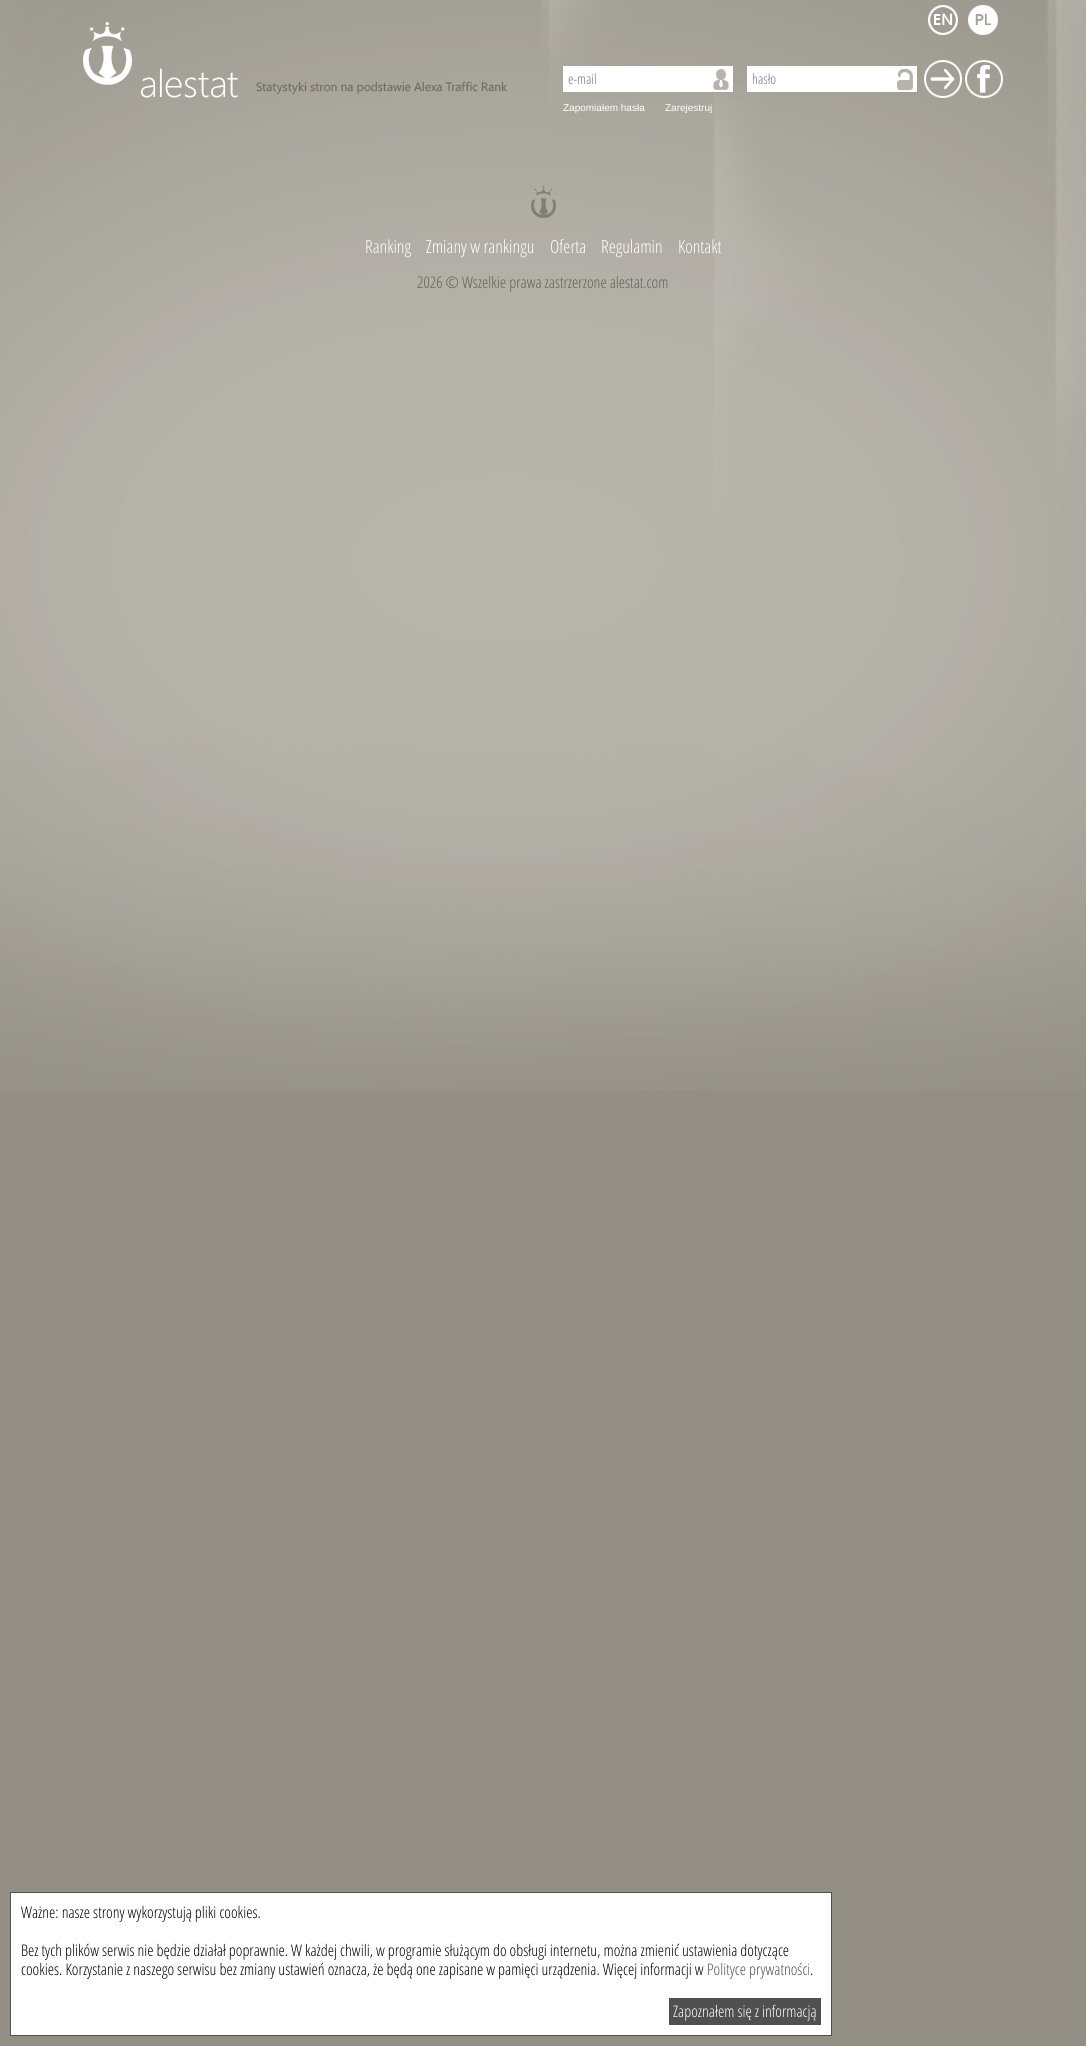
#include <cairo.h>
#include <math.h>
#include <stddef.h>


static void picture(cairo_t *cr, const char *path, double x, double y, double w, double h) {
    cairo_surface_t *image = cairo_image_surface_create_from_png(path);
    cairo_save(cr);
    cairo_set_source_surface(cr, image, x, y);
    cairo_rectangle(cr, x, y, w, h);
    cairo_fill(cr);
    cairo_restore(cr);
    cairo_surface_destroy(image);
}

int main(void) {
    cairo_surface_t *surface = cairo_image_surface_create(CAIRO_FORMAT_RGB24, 1086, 2046);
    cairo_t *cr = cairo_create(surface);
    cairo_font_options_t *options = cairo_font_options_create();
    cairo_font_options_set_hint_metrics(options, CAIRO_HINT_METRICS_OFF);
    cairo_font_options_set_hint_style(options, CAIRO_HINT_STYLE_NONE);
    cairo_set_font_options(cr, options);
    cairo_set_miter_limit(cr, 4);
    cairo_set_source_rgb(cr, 0.576, 0.561, 0.518);
    cairo_paint(cr);
    picture(cr, "img1.png", 0, 0, 1086, 1091);
    picture(cr, "img2.png", 83, 22, 424, 76);
    cairo_set_source_rgb(cr, 1, 1, 1);
    cairo_rectangle(cr, 563, 66, 170, 26);
    cairo_fill(cr);
    picture(cr, "img3.png", 713, 69, 16, 21);
    cairo_select_font_face(cr, "Open Sans Light", CAIRO_FONT_SLANT_NORMAL, CAIRO_FONT_WEIGHT_NORMAL);
    cairo_set_font_size(cr, 14);
    cairo_set_source_rgb(cr, 0.459, 0.459, 0.459);
    cairo_move_to(cr, 568, 84);
    cairo_show_text(cr, "e-mail");
    cairo_set_source_rgb(cr, 1, 1, 1);
    cairo_rectangle(cr, 747, 66, 170, 26);
    cairo_fill(cr);
    picture(cr, "img4.png", 897, 69, 16, 21);
    cairo_set_source_rgb(cr, 0.459, 0.459, 0.459);
    cairo_move_to(cr, 752, 84);
    cairo_show_text(cr, "hasło");
    picture(cr, "img5.png", 924, 60, 38, 38);
    picture(cr, "img6.png", 965, 60, 38, 38);
    cairo_select_font_face(cr, "Liberation Sans", CAIRO_FONT_SLANT_NORMAL, CAIRO_FONT_WEIGHT_NORMAL);
    cairo_set_font_size(cr, 10);
    cairo_set_source_rgb(cr, 1, 1, 1);
    cairo_move_to(cr, 563, 111);
    cairo_show_text(cr, "Zapomiałem hasła");
    cairo_move_to(cr, 665, 111);
    cairo_show_text(cr, "Zarejestruj");
    picture(cr, "img7.png", 928, 5, 30, 30);
    picture(cr, "img8.png", 968, 5, 30, 30);
    picture(cr, "img9.png", 531, 186, 25, 32);
    cairo_select_font_face(cr, "Open Sans Light", CAIRO_FONT_SLANT_NORMAL, CAIRO_FONT_WEIGHT_NORMAL);
    cairo_set_font_size(cr, 18);
    cairo_move_to(cr, 365, 253);
    cairo_show_text(cr, "Ranking");
    cairo_move_to(cr, 426, 253);
    cairo_show_text(cr, "Zmiany w rankingu");
    cairo_move_to(cr, 550, 253);
    cairo_show_text(cr, "Oferta");
    cairo_move_to(cr, 601, 253);
    cairo_show_text(cr, "Regulamin");
    cairo_move_to(cr, 678, 253);
    cairo_show_text(cr, "Kontakt");
    cairo_set_font_size(cr, 16);
    cairo_set_source_rgb(cr, 0.4, 0.38, 0.337);
    cairo_move_to(cr, 417, 288);
    cairo_show_text(cr, "2026 © Wszelkie prawa zastrzerzone alestat.com");
    cairo_set_source_rgb(cr, 1, 1, 1);
    cairo_rectangle(cr, 10.5, 1892.5, 821, 143);
    cairo_fill_preserve(cr);
    cairo_set_source_rgb(cr, 0.314, 0.314, 0.314);
    cairo_set_line_width(cr, 1);
    cairo_stroke(cr);
    cairo_set_source_rgb(cr, 0, 0, 0);
    cairo_move_to(cr, 21, 1918);
    cairo_show_text(cr, "Ważne: nasze strony wykorzystują pliki cookies.");
    cairo_move_to(cr, 21, 1956);
    cairo_show_text(cr, "Bez tych plików serwis nie będzie działał poprawnie. W każdej chwili, w programie służącym do obsługi internetu, można zmienić ustawienia dotyczące");
    cairo_move_to(cr, 21, 1975);
    cairo_show_text(cr, "cookies. Korzystanie z naszego serwisu bez zmiany ustawień oznacza, że będą one zapisane w pamięci urządzenia. Więcej informacji w");
    cairo_set_source_rgb(cr, 0.314, 0.314, 0.314);
    cairo_move_to(cr, 707, 1975);
    cairo_show_text(cr, "Polityce prywatności");
    cairo_set_source_rgb(cr, 0, 0, 0);
    cairo_move_to(cr, 810, 1975);
    cairo_show_text(cr, ".");
    cairo_set_source_rgb(cr, 0.314, 0.314, 0.314);
    cairo_rectangle(cr, 669, 1998, 152, 27);
    cairo_fill(cr);
    cairo_set_source_rgb(cr, 1, 1, 1);
    cairo_move_to(cr, 673, 2017);
    cairo_show_text(cr, "Zapoznałem się z informacją");
    cairo_surface_write_to_png(surface, "page.png");
    cairo_font_options_destroy(options);
    cairo_destroy(cr);
    cairo_surface_destroy(surface);
    return 0;
}
